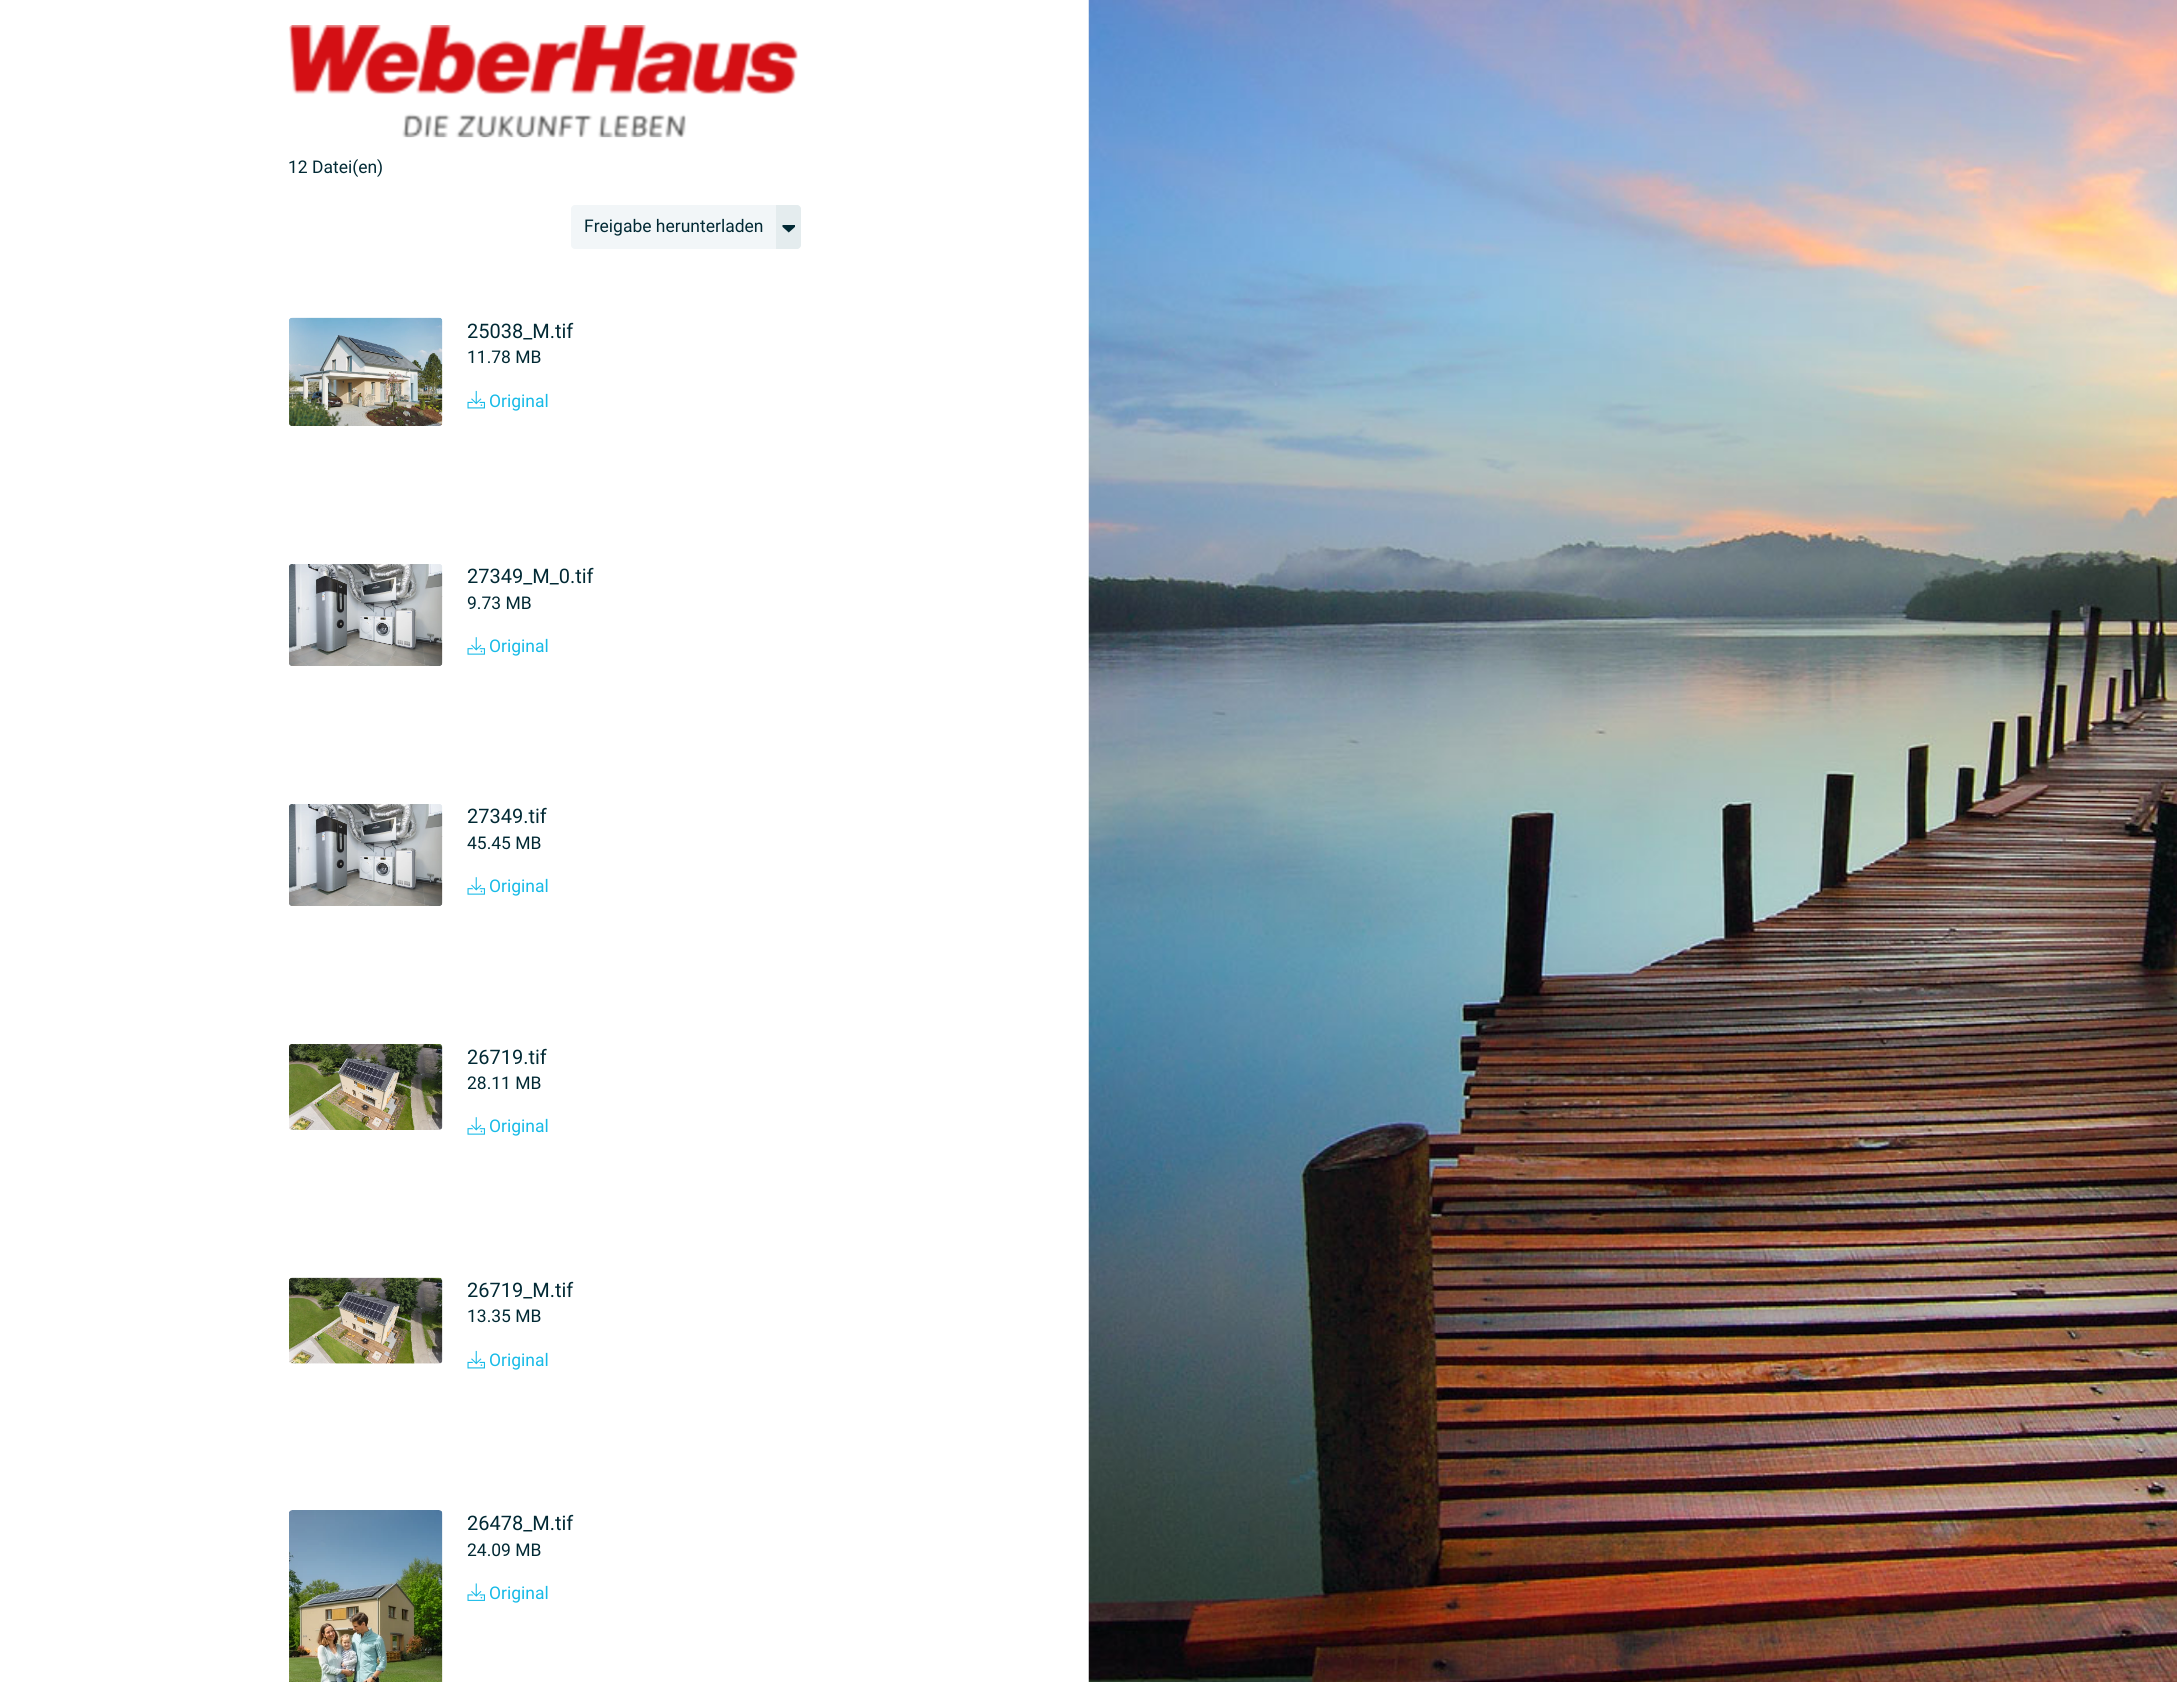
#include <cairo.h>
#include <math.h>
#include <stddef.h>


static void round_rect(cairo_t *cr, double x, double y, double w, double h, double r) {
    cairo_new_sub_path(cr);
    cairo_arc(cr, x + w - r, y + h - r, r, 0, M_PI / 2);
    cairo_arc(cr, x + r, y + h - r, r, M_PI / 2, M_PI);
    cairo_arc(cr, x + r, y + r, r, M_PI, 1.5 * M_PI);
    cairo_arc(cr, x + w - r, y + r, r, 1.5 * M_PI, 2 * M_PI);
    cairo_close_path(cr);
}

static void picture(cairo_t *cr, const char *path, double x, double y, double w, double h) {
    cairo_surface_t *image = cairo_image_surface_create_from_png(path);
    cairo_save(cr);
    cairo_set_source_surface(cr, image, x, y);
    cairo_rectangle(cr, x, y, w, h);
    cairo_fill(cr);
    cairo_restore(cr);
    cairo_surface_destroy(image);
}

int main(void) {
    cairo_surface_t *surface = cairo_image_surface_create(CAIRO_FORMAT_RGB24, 2177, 1682);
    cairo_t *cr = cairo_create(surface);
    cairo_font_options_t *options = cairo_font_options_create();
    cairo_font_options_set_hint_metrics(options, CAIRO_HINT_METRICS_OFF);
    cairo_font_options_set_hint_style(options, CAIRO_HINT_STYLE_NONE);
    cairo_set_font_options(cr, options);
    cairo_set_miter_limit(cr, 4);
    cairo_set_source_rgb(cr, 1, 1, 1);
    cairo_paint(cr);
    picture(cr, "img1.png", 289, 25, 509, 113);
    cairo_select_font_face(cr, "Roboto", CAIRO_FONT_SLANT_NORMAL, CAIRO_FONT_WEIGHT_NORMAL);
    cairo_set_font_size(cr, 17.5);
    cairo_set_source_rgb(cr, 0.004, 0.161, 0.204);
    cairo_move_to(cr, 288, 173);
    cairo_show_text(cr, "12 Datei(en)");
    cairo_set_source_rgb(cr, 0.949, 0.961, 0.969);
    round_rect(cr, 571, 205, 230, 44, 4);
    cairo_fill(cr);
    cairo_set_source_rgb(cr, 0.004, 0.161, 0.204);
    cairo_move_to(cr, 584, 232);
    cairo_show_text(cr, "Freigabe herunterladen");
    cairo_set_source_rgb(cr, 0.894, 0.922, 0.933);
    cairo_new_path(cr);
    cairo_move_to(cr, 776, 205);
    cairo_line_to(cr, 797, 205);
    cairo_curve_to(cr, 799, 205, 801, 207, 801, 209);
    cairo_line_to(cr, 801, 245);
    cairo_curve_to(cr, 801, 247, 799, 249, 797, 249);
    cairo_line_to(cr, 776, 249);
    cairo_close_path(cr);
    cairo_fill(cr);
    picture(cr, "img2.png", 782, 225, 13, 8);
    picture(cr, "img3.png", 289, 317, 154, 109);
    cairo_set_font_size(cr, 20);
    cairo_set_source_rgb(cr, 0.004, 0.161, 0.204);
    cairo_move_to(cr, 467, 338);
    cairo_show_text(cr, "25038_M.tif");
    cairo_set_font_size(cr, 17.5);
    cairo_move_to(cr, 467, 363);
    cairo_show_text(cr, "11.78 MB");
    picture(cr, "img4.png", 467, 390, 18, 19);
    cairo_set_source_rgb(cr, 0.086, 0.729, 0.906);
    cairo_move_to(cr, 489, 407);
    cairo_show_text(cr, "Original");
    picture(cr, "img5.png", 289, 564, 154, 102);
    cairo_set_font_size(cr, 20);
    cairo_set_source_rgb(cr, 0.004, 0.161, 0.204);
    cairo_move_to(cr, 467, 583);
    cairo_show_text(cr, "27349_M_0.tif");
    cairo_set_font_size(cr, 17.5);
    cairo_move_to(cr, 467, 609);
    cairo_show_text(cr, "9.73 MB");
    picture(cr, "img6.png", 467, 637, 18, 18);
    cairo_set_source_rgb(cr, 0.086, 0.729, 0.906);
    cairo_move_to(cr, 489, 652);
    cairo_show_text(cr, "Original");
    picture(cr, "img7.png", 289, 804, 154, 102);
    cairo_set_font_size(cr, 20);
    cairo_set_source_rgb(cr, 0.004, 0.161, 0.204);
    cairo_move_to(cr, 467, 823);
    cairo_show_text(cr, "27349.tif");
    cairo_set_font_size(cr, 17.5);
    cairo_move_to(cr, 467, 849);
    cairo_show_text(cr, "45.45 MB");
    picture(cr, "img6.png", 467, 877, 18, 18);
    cairo_set_source_rgb(cr, 0.086, 0.729, 0.906);
    cairo_move_to(cr, 489, 892);
    cairo_show_text(cr, "Original");
    picture(cr, "img8.png", 289, 1044, 154, 86);
    cairo_set_font_size(cr, 20);
    cairo_set_source_rgb(cr, 0.004, 0.161, 0.204);
    cairo_move_to(cr, 467, 1064);
    cairo_show_text(cr, "26719.tif");
    cairo_set_font_size(cr, 17.5);
    cairo_move_to(cr, 467, 1089);
    cairo_show_text(cr, "28.11 MB");
    picture(cr, "img6.png", 467, 1117, 18, 18);
    cairo_set_source_rgb(cr, 0.086, 0.729, 0.906);
    cairo_move_to(cr, 489, 1132);
    cairo_show_text(cr, "Original");
    picture(cr, "img9.png", 289, 1277, 154, 87);
    cairo_set_font_size(cr, 20);
    cairo_set_source_rgb(cr, 0.004, 0.161, 0.204);
    cairo_move_to(cr, 467, 1297);
    cairo_show_text(cr, "26719_M.tif");
    cairo_set_font_size(cr, 17.5);
    cairo_move_to(cr, 467, 1322);
    cairo_show_text(cr, "13.35 MB");
    picture(cr, "img4.png", 467, 1350, 18, 19);
    cairo_set_source_rgb(cr, 0.086, 0.729, 0.906);
    cairo_move_to(cr, 489, 1366);
    cairo_show_text(cr, "Original");
    picture(cr, "img10.png", 289, 1510, 154, 172);
    cairo_set_font_size(cr, 20);
    cairo_set_source_rgb(cr, 0.004, 0.161, 0.204);
    cairo_move_to(cr, 467, 1530);
    cairo_show_text(cr, "26478_M.tif");
    cairo_set_font_size(cr, 17.5);
    cairo_move_to(cr, 467, 1556);
    cairo_show_text(cr, "24.09 MB");
    picture(cr, "img11.png", 467, 1583, 18, 18);
    cairo_set_source_rgb(cr, 0.086, 0.729, 0.906);
    cairo_move_to(cr, 489, 1599);
    cairo_show_text(cr, "Original");
    picture(cr, "img12.png", 1088, 0, 1089, 1682);
    cairo_surface_write_to_png(surface, "page.png");
    cairo_font_options_destroy(options);
    cairo_destroy(cr);
    cairo_surface_destroy(surface);
    return 0;
}
